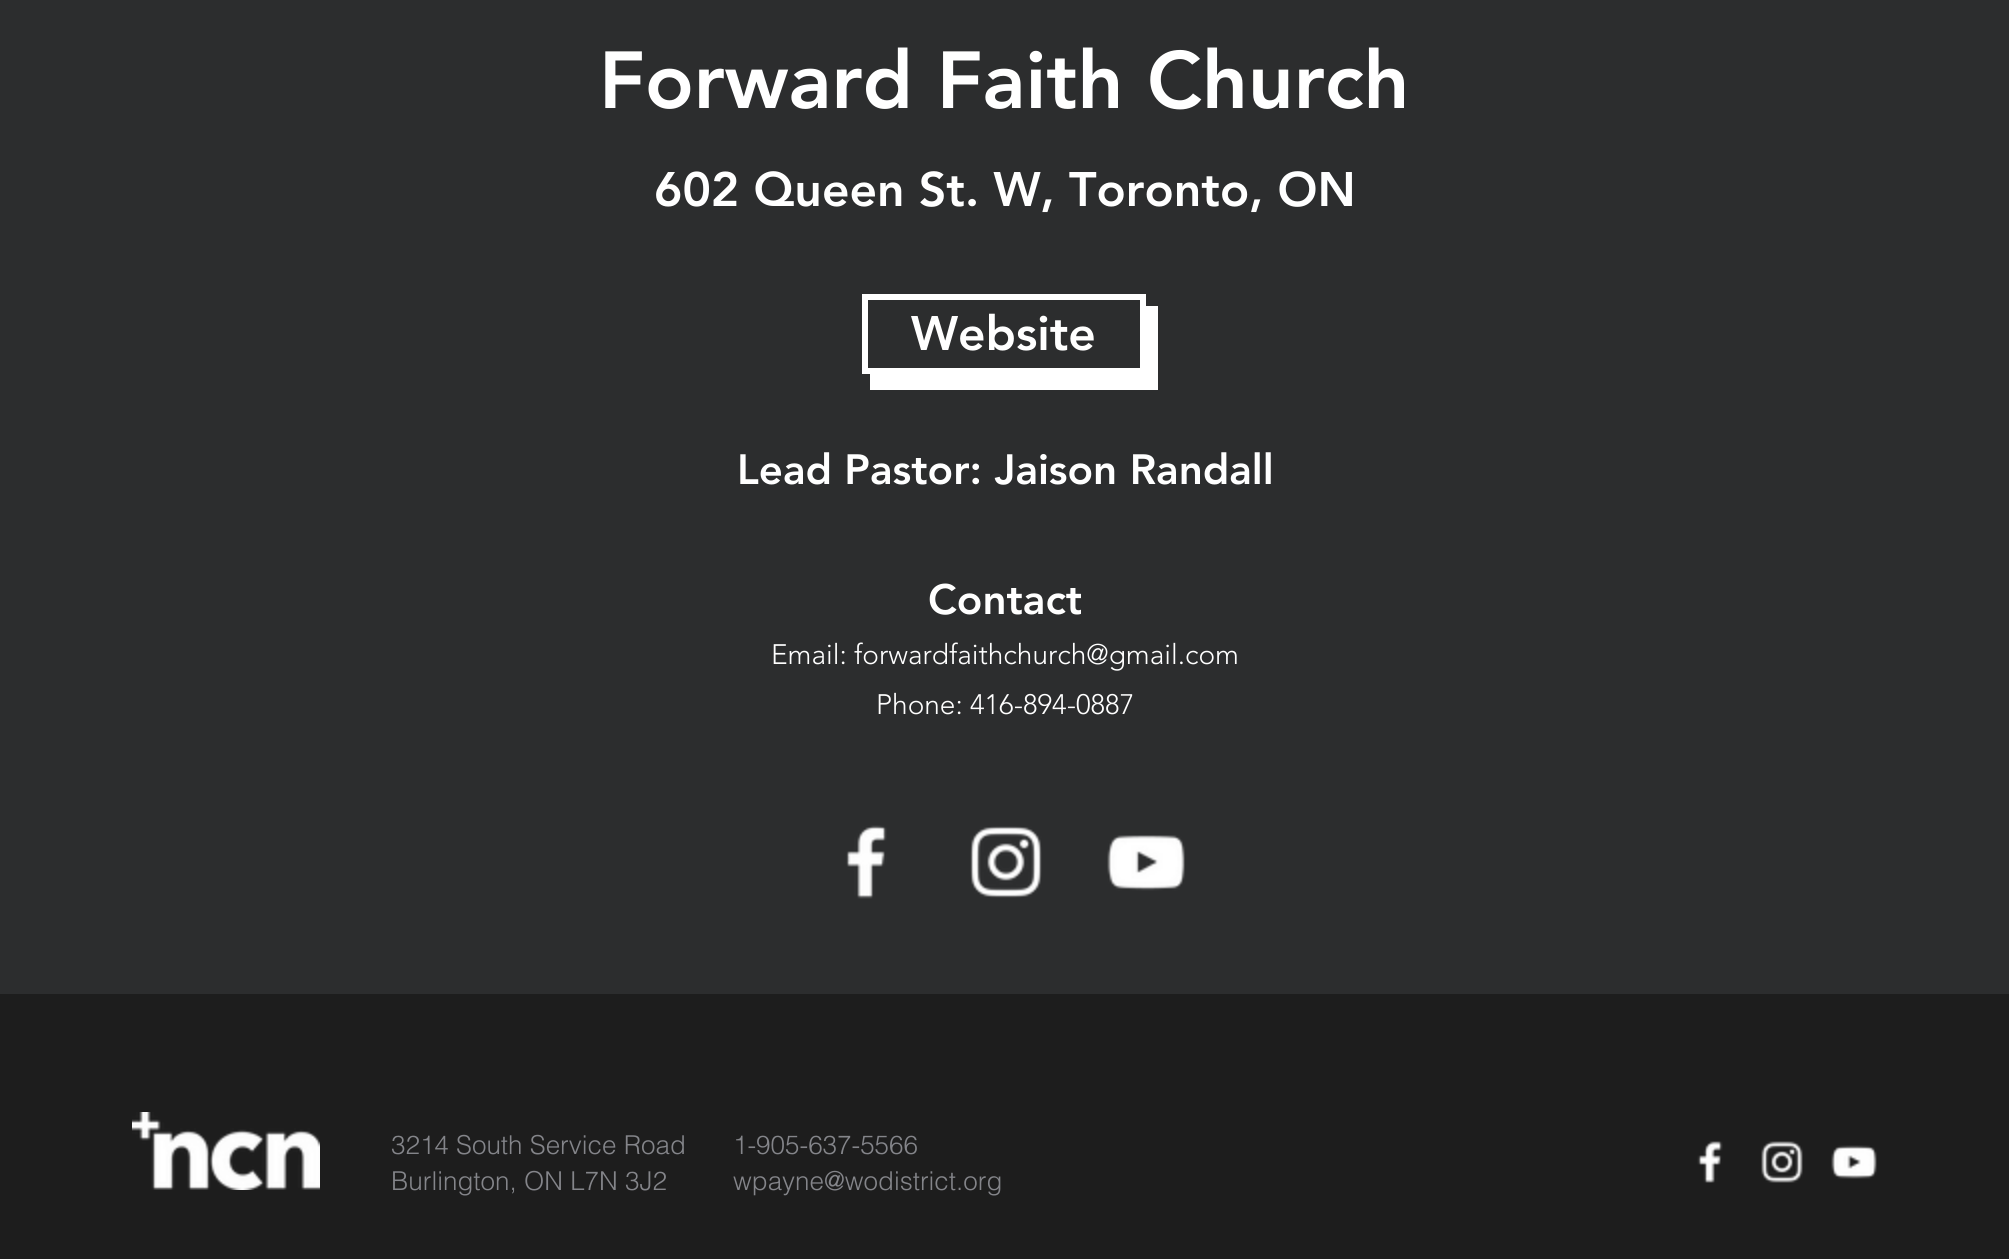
#include <cairo.h>
#include <math.h>
#include <stddef.h>


static void picture(cairo_t *cr, const char *path, double x, double y, double w, double h) {
    cairo_surface_t *image = cairo_image_surface_create_from_png(path);
    cairo_save(cr);
    cairo_set_source_surface(cr, image, x, y);
    cairo_rectangle(cr, x, y, w, h);
    cairo_fill(cr);
    cairo_restore(cr);
    cairo_surface_destroy(image);
}

int main(void) {
    cairo_surface_t *surface = cairo_image_surface_create(CAIRO_FORMAT_RGB24, 2009, 1259);
    cairo_t *cr = cairo_create(surface);
    cairo_font_options_t *options = cairo_font_options_create();
    cairo_font_options_set_hint_metrics(options, CAIRO_HINT_METRICS_OFF);
    cairo_font_options_set_hint_style(options, CAIRO_HINT_STYLE_NONE);
    cairo_set_font_options(cr, options);
    cairo_set_miter_limit(cr, 4);
    cairo_set_source_rgb(cr, 0.173, 0.176, 0.18);
    cairo_paint(cr);
    cairo_select_font_face(cr, "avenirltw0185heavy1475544 Black", CAIRO_FONT_SLANT_NORMAL, CAIRO_FONT_WEIGHT_NORMAL);
    cairo_set_font_size(cr, 80);
    cairo_set_source_rgb(cr, 1, 1, 1);
    cairo_move_to(cr, 599, 108);
    cairo_show_text(cr, "Forward Faith Church");
    cairo_set_font_size(cr, 48);
    cairo_move_to(cr, 654, 206);
    cairo_show_text(cr, "602 Queen St. W, Toronto, ON");
    cairo_new_path(cr);
    cairo_move_to(cr, 870, 374);
    cairo_line_to(cr, 870, 390);
    cairo_line_to(cr, 1158, 390);
    cairo_line_to(cr, 1158, 306);
    cairo_line_to(cr, 1146, 306);
    cairo_line_to(cr, 1146, 374);
    cairo_close_path(cr);
    cairo_fill(cr);
    cairo_rectangle(cr, 865, 297, 278, 74);
    cairo_set_line_width(cr, 6);
    cairo_stroke(cr);
    cairo_move_to(cr, 911, 350);
    cairo_show_text(cr, "Website");
    cairo_set_font_size(cr, 42);
    cairo_move_to(cr, 737, 484);
    cairo_show_text(cr, "Lead Pastor: Jaison Randall");
    cairo_move_to(cr, 928, 614);
    cairo_show_text(cr, "Contact");
    cairo_select_font_face(cr, "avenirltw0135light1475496 Light", CAIRO_FONT_SLANT_NORMAL, CAIRO_FONT_WEIGHT_NORMAL);
    cairo_set_font_size(cr, 28);
    cairo_move_to(cr, 771, 664);
    cairo_show_text(cr, "Email: forwardfaithchurch@gmail.com");
    cairo_move_to(cr, 876, 714);
    cairo_show_text(cr, "Phone: 416-894-0887");
    picture(cr, "img1.png", 846, 825, 41, 74);
    picture(cr, "img2.png", 970, 826, 72, 72);
    picture(cr, "img3.png", 1107, 835, 78, 56);
    cairo_set_source_rgb(cr, 0.114, 0.114, 0.114);
    cairo_rectangle(cr, 0, 994, 2009, 265);
    cairo_fill(cr);
    picture(cr, "img4.png", 132, 1112, 188, 78);
    cairo_select_font_face(cr, "helvetica Light", CAIRO_FONT_SLANT_NORMAL, CAIRO_FONT_WEIGHT_NORMAL);
    cairo_set_font_size(cr, 26);
    cairo_set_source_rgb(cr, 0.518, 0.522, 0.541);
    cairo_move_to(cr, 391, 1154);
    cairo_show_text(cr, "3214 South Service Road");
    cairo_move_to(cr, 391, 1190);
    cairo_show_text(cr, "Burlington, ON L7N 3J2");
    cairo_move_to(cr, 733, 1154);
    cairo_show_text(cr, "1-905-637-5566");
    cairo_move_to(cr, 733, 1190);
    cairo_show_text(cr, "wpayne@wodistrict.org");
    picture(cr, "img5.png", 1697, 1141, 26, 42);
    picture(cr, "img6.png", 1761, 1141, 42, 42);
    picture(cr, "img7.png", 1831, 1145, 46, 34);
    cairo_surface_write_to_png(surface, "page.png");
    cairo_font_options_destroy(options);
    cairo_destroy(cr);
    cairo_surface_destroy(surface);
    return 0;
}
